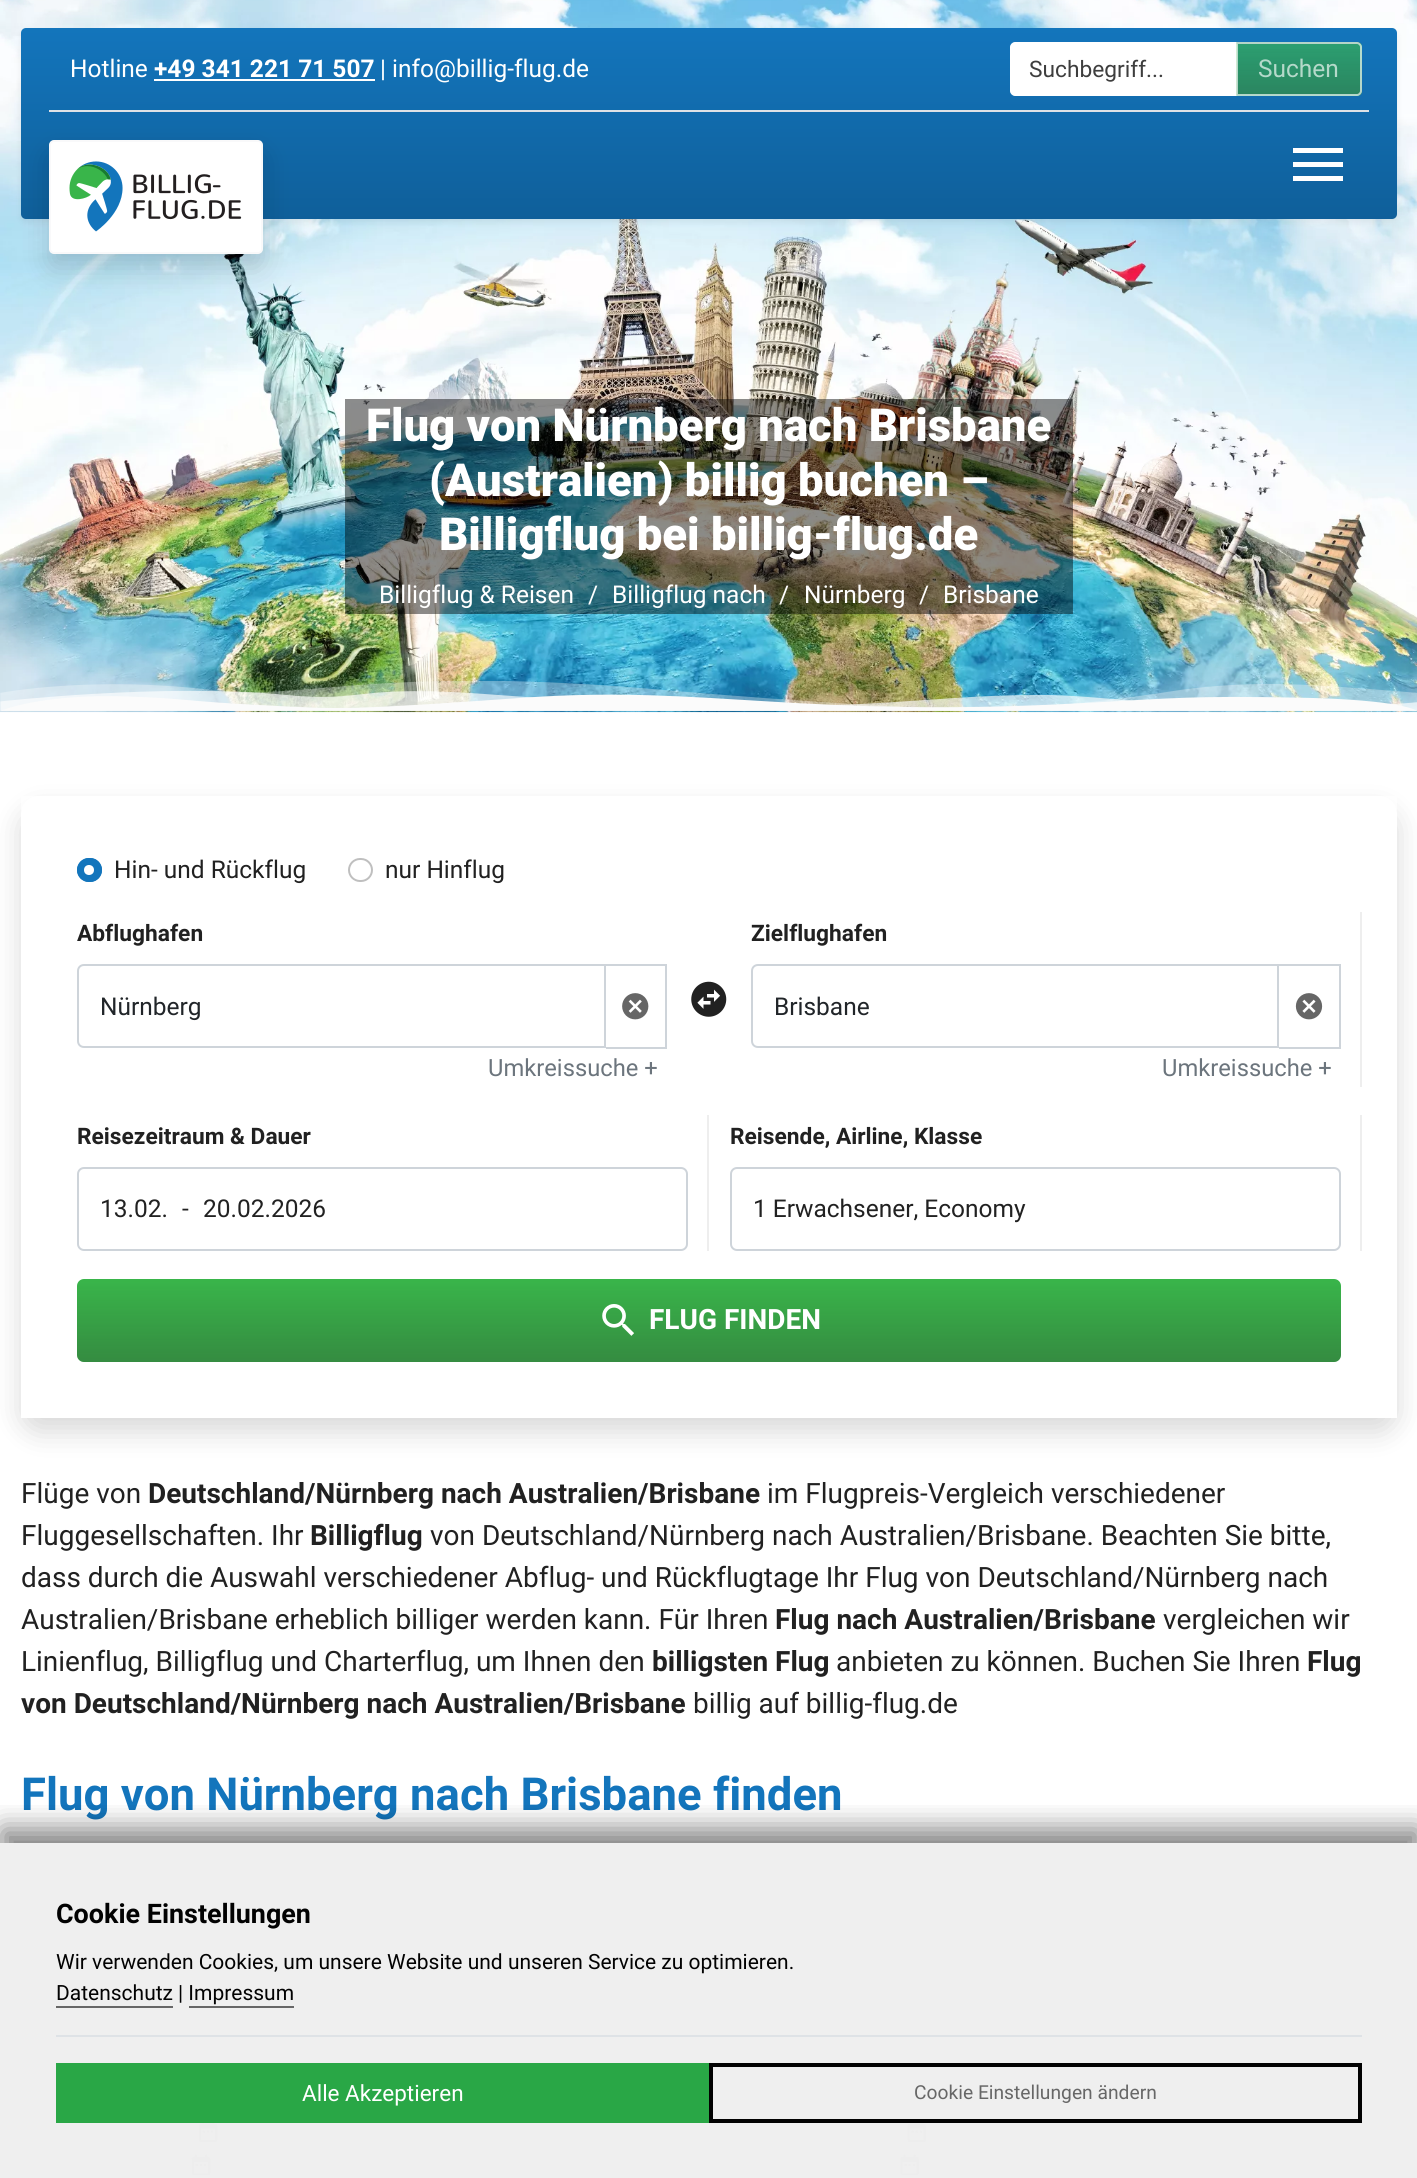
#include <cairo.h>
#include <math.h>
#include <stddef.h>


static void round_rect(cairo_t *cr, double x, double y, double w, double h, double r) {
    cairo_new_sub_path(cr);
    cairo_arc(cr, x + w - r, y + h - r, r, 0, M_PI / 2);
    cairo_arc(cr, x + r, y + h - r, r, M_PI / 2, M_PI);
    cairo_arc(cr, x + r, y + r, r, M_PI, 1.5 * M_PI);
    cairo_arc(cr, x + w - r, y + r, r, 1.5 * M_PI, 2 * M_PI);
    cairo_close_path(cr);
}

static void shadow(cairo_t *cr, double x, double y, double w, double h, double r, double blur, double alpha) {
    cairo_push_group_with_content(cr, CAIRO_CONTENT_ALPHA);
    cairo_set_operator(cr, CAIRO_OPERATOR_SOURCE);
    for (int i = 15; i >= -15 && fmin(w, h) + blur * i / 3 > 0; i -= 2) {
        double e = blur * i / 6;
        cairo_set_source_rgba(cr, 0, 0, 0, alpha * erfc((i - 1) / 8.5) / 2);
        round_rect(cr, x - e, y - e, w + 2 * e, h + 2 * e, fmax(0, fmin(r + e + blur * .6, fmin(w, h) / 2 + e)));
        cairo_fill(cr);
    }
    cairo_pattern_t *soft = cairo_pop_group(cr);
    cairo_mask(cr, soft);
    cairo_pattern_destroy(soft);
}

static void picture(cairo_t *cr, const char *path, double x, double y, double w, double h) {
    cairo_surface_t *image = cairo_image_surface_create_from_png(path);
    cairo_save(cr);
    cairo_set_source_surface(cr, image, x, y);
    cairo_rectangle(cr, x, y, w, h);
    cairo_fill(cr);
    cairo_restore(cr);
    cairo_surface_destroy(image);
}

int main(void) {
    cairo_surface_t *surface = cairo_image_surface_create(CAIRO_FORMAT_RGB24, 1417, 2178);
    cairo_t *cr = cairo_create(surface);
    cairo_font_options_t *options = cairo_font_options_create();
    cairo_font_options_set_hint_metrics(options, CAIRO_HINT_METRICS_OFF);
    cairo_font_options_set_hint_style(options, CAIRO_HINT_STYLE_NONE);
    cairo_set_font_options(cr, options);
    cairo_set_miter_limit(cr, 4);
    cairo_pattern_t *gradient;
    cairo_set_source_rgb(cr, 1, 1, 1);
    cairo_paint(cr);
    cairo_set_source_rgb(cr, 0.937, 0.937, 0.937);
    cairo_rectangle(cr, 0, 1843, 1417, 335);
    cairo_fill(cr);
    picture(cr, "img2.png", 0, 0, 1417, 713);
    cairo_set_source_rgb(cr, 0, 0, 0);
    shadow(cr, 21, 32, 1376, 190, 5, 3.5, 0.07);
    gradient = cairo_pattern_create_linear(709, 28, 709, 219);
    cairo_pattern_add_color_stop_rgba(gradient, 0, 0.075, 0.459, 0.737, 1);
    cairo_pattern_add_color_stop_rgba(gradient, 1, 0.059, 0.373, 0.604, 1);
    cairo_set_source(cr, gradient);
    cairo_pattern_destroy(gradient);
    round_rect(cr, 21, 28, 1376, 191, 5);
    cairo_fill(cr);
    cairo_set_source_rgb(cr, 0.871, 0.886, 0.902);
    cairo_rectangle(cr, 49, 110, 1320, 2);
    cairo_fill(cr);
    cairo_select_font_face(cr, "Roboto", CAIRO_FONT_SLANT_NORMAL, CAIRO_FONT_WEIGHT_NORMAL);
    cairo_set_font_size(cr, 24.5);
    cairo_set_source_rgb(cr, 1, 1, 1);
    cairo_move_to(cr, 70, 77);
    cairo_show_text(cr, "Hotline");
    cairo_select_font_face(cr, "Roboto", CAIRO_FONT_SLANT_NORMAL, CAIRO_FONT_WEIGHT_BOLD);
    cairo_move_to(cr, 154, 77);
    cairo_show_text(cr, "+49 341 221 71 507");
    cairo_rectangle(cr, 154, 79, 221, 2);
    cairo_fill(cr);
    cairo_select_font_face(cr, "Roboto", CAIRO_FONT_SLANT_NORMAL, CAIRO_FONT_WEIGHT_NORMAL);
    cairo_move_to(cr, 380, 77);
    cairo_show_text(cr, "| info@billig-flug.de");
    cairo_new_path(cr);
    cairo_move_to(cr, 1015, 43);
    cairo_line_to(cr, 1236, 43);
    cairo_line_to(cr, 1236, 95);
    cairo_line_to(cr, 1015, 95);
    cairo_curve_to(cr, 1013, 95, 1011, 93, 1011, 91);
    cairo_line_to(cr, 1011, 47);
    cairo_curve_to(cr, 1011, 45, 1013, 43, 1015, 43);
    cairo_close_path(cr);
    cairo_fill_preserve(cr);
    cairo_stroke(cr);
    cairo_set_font_size(cr, 22.75);
    cairo_set_source_rgb(cr, 0.243, 0.243, 0.243);
    cairo_move_to(cr, 1029, 77);
    cairo_show_text(cr, "Suchbegriff...");
    cairo_set_source_rgba(cr, 0.224, 0.71, 0.29, 0.65);
    cairo_new_path(cr);
    cairo_move_to(cr, 1236, 42);
    cairo_line_to(cr, 1357, 42);
    cairo_curve_to(cr, 1360, 42, 1362, 44, 1362, 47);
    cairo_line_to(cr, 1362, 91);
    cairo_curve_to(cr, 1362, 94, 1360, 96, 1357, 96);
    cairo_line_to(cr, 1236, 96);
    cairo_close_path(cr);
    cairo_fill(cr);
    cairo_save(cr);
    cairo_new_path(cr);
    cairo_move_to(cr, 1236, 42);
    cairo_line_to(cr, 1357, 42);
    cairo_curve_to(cr, 1360, 42, 1362, 44, 1362, 47);
    cairo_line_to(cr, 1362, 91);
    cairo_curve_to(cr, 1362, 94, 1360, 96, 1357, 96);
    cairo_line_to(cr, 1236, 96);
    cairo_close_path(cr);
    cairo_clip(cr);
    gradient = cairo_pattern_create_linear(1299, 44, 1299, -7);
    cairo_pattern_add_color_stop_rgba(gradient, 0, 0.169, 0.169, 0.169, 0.2);
    cairo_pattern_add_color_stop_rgba(gradient, 1, 0.169, 0.169, 0.169, 0);
    cairo_set_source(cr, gradient);
    cairo_pattern_destroy(gradient);
    cairo_rectangle(cr, 1236, 42, 126, 2);
    cairo_fill(cr);
    gradient = cairo_pattern_create_linear(1299, 95, 1299, 44);
    cairo_pattern_add_color_stop_rgba(gradient, 0, 0.169, 0.169, 0.169, 0.2);
    cairo_pattern_add_color_stop_rgba(gradient, 1, 0.169, 0.169, 0.169, 0);
    cairo_set_source(cr, gradient);
    cairo_pattern_destroy(gradient);
    cairo_rectangle(cr, 1236, 49, 126, 46);
    cairo_fill(cr);
    cairo_restore(cr);
    cairo_new_path(cr);
    cairo_move_to(cr, 1237, 43);
    cairo_line_to(cr, 1357, 43);
    cairo_curve_to(cr, 1359, 43, 1361, 45, 1361, 47);
    cairo_line_to(cr, 1361, 91);
    cairo_curve_to(cr, 1361, 93, 1359, 95, 1357, 95);
    cairo_line_to(cr, 1237, 95);
    cairo_close_path(cr);
    cairo_set_source_rgba(cr, 1, 1, 1, 0.65);
    cairo_stroke(cr);
    cairo_set_font_size(cr, 24.5);
    cairo_set_source_rgb(cr, 0.71, 0.851, 0.792);
    cairo_move_to(cr, 1258, 77);
    cairo_show_text(cr, "Suchen");
    cairo_set_source_rgb(cr, 0, 0, 0);
    shadow(cr, 49, 154, 214, 114, 5, 14, 0.15);
    cairo_set_source_rgb(cr, 1, 1, 1);
    round_rect(cr, 50, 141, 212, 112, 4);
    cairo_fill_preserve(cr);
    cairo_set_source_rgb(cr, 0.973, 0.976, 0.98);
    cairo_stroke(cr);
    picture(cr, "img1.png", 69, 161, 173, 71);
    cairo_set_source_rgb(cr, 1, 1, 1);
    cairo_new_path(cr);
    cairo_move_to(cr, 1293, 148);
    cairo_line_to(cr, 1343, 148);
    cairo_line_to(cr, 1343, 153);
    cairo_line_to(cr, 1293, 153);
    cairo_line_to(cr, 1293, 148);
    cairo_move_to(cr, 1293, 162);
    cairo_line_to(cr, 1343, 162);
    cairo_line_to(cr, 1343, 167);
    cairo_line_to(cr, 1293, 167);
    cairo_line_to(cr, 1293, 162);
    cairo_move_to(cr, 1293, 176);
    cairo_line_to(cr, 1343, 176);
    cairo_line_to(cr, 1343, 181);
    cairo_line_to(cr, 1293, 181);
    cairo_close_path(cr);
    cairo_fill(cr);
    cairo_set_source_rgba(cr, 0, 0, 0, 0.45);
    cairo_rectangle(cr, 345, 399, 728, 215);
    cairo_fill(cr);
    cairo_select_font_face(cr, "Roboto Black", CAIRO_FONT_SLANT_NORMAL, CAIRO_FONT_WEIGHT_NORMAL);
    cairo_set_font_size(cr, 45.5);
    cairo_set_source_rgb(cr, 1, 1, 1);
    cairo_move_to(cr, 366, 441);
    cairo_show_text(cr, "Flug von Nürnberg nach Brisbane");
    cairo_move_to(cr, 429, 496);
    cairo_show_text(cr, "(Australien) billig buchen –");
    cairo_move_to(cr, 439, 550);
    cairo_show_text(cr, "Billigflug bei billig-flug.de");
    cairo_select_font_face(cr, "Roboto", CAIRO_FONT_SLANT_NORMAL, CAIRO_FONT_WEIGHT_NORMAL);
    cairo_set_font_size(cr, 24.5);
    cairo_move_to(cr, 379, 603);
    cairo_show_text(cr, "Billigflug & Reisen");
    cairo_move_to(cr, 588, 603);
    cairo_show_text(cr, "/");
    cairo_move_to(cr, 612, 603);
    cairo_show_text(cr, "Billigflug nach");
    cairo_move_to(cr, 779, 603);
    cairo_show_text(cr, "/");
    cairo_move_to(cr, 804, 603);
    cairo_show_text(cr, "Nürnberg");
    cairo_move_to(cr, 919, 603);
    cairo_show_text(cr, "/");
    cairo_move_to(cr, 943, 603);
    cairo_show_text(cr, "Brisbane");
    picture(cr, "img3.png", 0, 681, 1417, 30);
    cairo_set_source_rgb(cr, 0, 0, 0);
    shadow(cr, 21, 810, 1376, 622, 18, 14, 0.15);
    cairo_set_source_rgb(cr, 1, 1, 1);
    cairo_new_path(cr);
    cairo_move_to(cr, 39, 796);
    cairo_line_to(cr, 1379, 796);
    cairo_curve_to(cr, 1389, 796, 1397, 804, 1397, 814);
    cairo_line_to(cr, 1397, 1418);
    cairo_line_to(cr, 21, 1418);
    cairo_line_to(cr, 21, 814);
    cairo_curve_to(cr, 21, 804, 29, 796, 39, 796);
    cairo_close_path(cr);
    cairo_fill(cr);
    cairo_set_source_rgba(cr, 1, 1, 1, 0.65);
    cairo_rectangle(cr, 21, 796, 1376, 14);
    cairo_fill(cr);
    cairo_set_source_rgb(cr, 0.075, 0.459, 0.737);
    round_rect(cr, 77, 858, 25, 24, 12);
    cairo_fill(cr);
    cairo_set_source_rgb(cr, 1, 1, 1);
    cairo_arc(cr, 89, 870, 5, 0, 2 * M_PI);
    cairo_fill(cr);
    round_rect(cr, 78, 859, 23, 22, 11);
    cairo_set_source_rgb(cr, 0.075, 0.459, 0.737);
    cairo_stroke(cr);
    cairo_set_source_rgb(cr, 0.129, 0.129, 0.129);
    cairo_move_to(cr, 114, 878);
    cairo_show_text(cr, "Hin- und Rückflug");
    round_rect(cr, 349, 859, 23, 22, 11);
    cairo_set_source_rgb(cr, 0.749, 0.749, 0.749);
    cairo_stroke(cr);
    cairo_set_source_rgb(cr, 0.129, 0.129, 0.129);
    cairo_move_to(cr, 385, 878);
    cairo_show_text(cr, "nur Hinflug");
    cairo_select_font_face(cr, "Roboto", CAIRO_FONT_SLANT_NORMAL, CAIRO_FONT_WEIGHT_BOLD);
    cairo_set_font_size(cr, 22.75);
    cairo_move_to(cr, 77, 941);
    cairo_show_text(cr, "Abflughafen");
    cairo_new_path(cr);
    cairo_move_to(cr, 84, 965);
    cairo_line_to(cr, 605, 965);
    cairo_line_to(cr, 605, 1047);
    cairo_line_to(cr, 84, 1047);
    cairo_curve_to(cr, 80.5, 1047, 78, 1044.5, 78, 1041);
    cairo_line_to(cr, 78, 971);
    cairo_curve_to(cr, 78, 967.5, 80.5, 965, 84, 965);
    cairo_close_path(cr);
    cairo_set_source_rgb(cr, 0.808, 0.831, 0.855);
    cairo_stroke(cr);
    cairo_select_font_face(cr, "Roboto", CAIRO_FONT_SLANT_NORMAL, CAIRO_FONT_WEIGHT_NORMAL);
    cairo_set_font_size(cr, 24.5);
    cairo_set_source_rgb(cr, 0.129, 0.145, 0.161);
    cairo_move_to(cr, 100, 1015);
    cairo_show_text(cr, "Nürnberg");
    picture(cr, "img4.png", 622, 993, 27, 27);
    cairo_set_source_rgb(cr, 0.808, 0.831, 0.855);
    cairo_rectangle(cr, 606, 964, 61, 2);
    cairo_fill(cr);
    cairo_rectangle(cr, 665, 964, 2, 84);
    cairo_fill(cr);
    cairo_rectangle(cr, 606, 1047, 61, 2);
    cairo_fill(cr);
    cairo_set_font_size(cr, 23.75);
    cairo_set_source_rgb(cr, 0.424, 0.459, 0.49);
    cairo_move_to(cr, 488, 1076);
    cairo_show_text(cr, "Umkreissuche +");
    picture(cr, "img5.png", 691, 981, 36, 36);
    cairo_select_font_face(cr, "Roboto", CAIRO_FONT_SLANT_NORMAL, CAIRO_FONT_WEIGHT_BOLD);
    cairo_set_font_size(cr, 22.75);
    cairo_set_source_rgb(cr, 0.129, 0.129, 0.129);
    cairo_move_to(cr, 751, 941);
    cairo_show_text(cr, "Zielflughafen");
    cairo_new_path(cr);
    cairo_move_to(cr, 758, 965);
    cairo_line_to(cr, 1278, 965);
    cairo_line_to(cr, 1278, 1047);
    cairo_line_to(cr, 758, 1047);
    cairo_curve_to(cr, 754.5, 1047, 752, 1044.5, 752, 1041);
    cairo_line_to(cr, 752, 971);
    cairo_curve_to(cr, 752, 967.5, 754.5, 965, 758, 965);
    cairo_close_path(cr);
    cairo_set_source_rgb(cr, 0.808, 0.831, 0.855);
    cairo_stroke(cr);
    cairo_select_font_face(cr, "Roboto", CAIRO_FONT_SLANT_NORMAL, CAIRO_FONT_WEIGHT_NORMAL);
    cairo_set_font_size(cr, 24.5);
    cairo_set_source_rgb(cr, 0.129, 0.145, 0.161);
    cairo_move_to(cr, 774, 1015);
    cairo_show_text(cr, "Brisbane");
    picture(cr, "img6.png", 1295, 993, 28, 27);
    cairo_set_source_rgb(cr, 0.808, 0.831, 0.855);
    cairo_rectangle(cr, 1279, 964, 62, 2);
    cairo_fill(cr);
    cairo_rectangle(cr, 1339, 964, 2, 84);
    cairo_fill(cr);
    cairo_rectangle(cr, 1279, 1047, 62, 2);
    cairo_fill(cr);
    cairo_set_font_size(cr, 23.75);
    cairo_set_source_rgb(cr, 0.424, 0.459, 0.49);
    cairo_move_to(cr, 1162, 1076);
    cairo_show_text(cr, "Umkreissuche +");
    cairo_set_source_rgb(cr, 0.933, 0.933, 0.933);
    cairo_rectangle(cr, 1360, 912, 2, 175);
    cairo_fill(cr);
    cairo_select_font_face(cr, "Roboto", CAIRO_FONT_SLANT_NORMAL, CAIRO_FONT_WEIGHT_BOLD);
    cairo_set_font_size(cr, 22.75);
    cairo_set_source_rgb(cr, 0.129, 0.129, 0.129);
    cairo_move_to(cr, 77, 1144);
    cairo_show_text(cr, "Reisezeitraum & Dauer");
    round_rect(cr, 78, 1168, 609, 82, 6);
    cairo_set_source_rgb(cr, 0.808, 0.831, 0.855);
    cairo_stroke(cr);
    cairo_select_font_face(cr, "Roboto", CAIRO_FONT_SLANT_NORMAL, CAIRO_FONT_WEIGHT_NORMAL);
    cairo_set_font_size(cr, 24.5);
    cairo_set_source_rgb(cr, 0.129, 0.129, 0.129);
    cairo_move_to(cr, 100, 1217);
    cairo_show_text(cr, "13.02.");
    cairo_move_to(cr, 182, 1217);
    cairo_show_text(cr, "-");
    cairo_move_to(cr, 203, 1217);
    cairo_show_text(cr, "20.02.2026");
    cairo_set_source_rgb(cr, 0.933, 0.933, 0.933);
    cairo_rectangle(cr, 707, 1115, 2, 136);
    cairo_fill(cr);
    cairo_select_font_face(cr, "Roboto", CAIRO_FONT_SLANT_NORMAL, CAIRO_FONT_WEIGHT_BOLD);
    cairo_set_font_size(cr, 22.75);
    cairo_set_source_rgb(cr, 0.129, 0.129, 0.129);
    cairo_move_to(cr, 730, 1144);
    cairo_show_text(cr, "Reisende, Airline, Klasse");
    round_rect(cr, 731, 1168, 609, 82, 6);
    cairo_set_source_rgb(cr, 0.808, 0.831, 0.855);
    cairo_stroke(cr);
    cairo_select_font_face(cr, "Roboto", CAIRO_FONT_SLANT_NORMAL, CAIRO_FONT_WEIGHT_NORMAL);
    cairo_set_font_size(cr, 24.5);
    cairo_set_source_rgb(cr, 0.129, 0.129, 0.129);
    cairo_move_to(cr, 753, 1217);
    cairo_show_text(cr, "1 Erwachsener, Economy");
    cairo_set_source_rgb(cr, 0.933, 0.933, 0.933);
    cairo_rectangle(cr, 1360, 1115, 2, 136);
    cairo_fill(cr);
    cairo_set_source_rgb(cr, 0.224, 0.71, 0.29);
    round_rect(cr, 77, 1279, 1264, 83, 7);
    cairo_fill(cr);
    gradient = cairo_pattern_create_linear(709, 1362, 709, 1279);
    cairo_pattern_add_color_stop_rgba(gradient, 0, 0.169, 0.169, 0.169, 0.3);
    cairo_pattern_add_color_stop_rgba(gradient, 1, 0.169, 0.169, 0.169, 0);
    cairo_set_source(cr, gradient);
    cairo_pattern_destroy(gradient);
    round_rect(cr, 77, 1279, 1264, 83, 7);
    cairo_fill(cr);
    picture(cr, "img7.png", 602, 1304, 32, 32);
    cairo_select_font_face(cr, "Roboto", CAIRO_FONT_SLANT_NORMAL, CAIRO_FONT_WEIGHT_BOLD);
    cairo_set_font_size(cr, 28);
    cairo_set_source_rgb(cr, 1, 1, 1);
    cairo_move_to(cr, 649, 1329);
    cairo_show_text(cr, "FLUG FINDEN");
    cairo_select_font_face(cr, "Roboto", CAIRO_FONT_SLANT_NORMAL, CAIRO_FONT_WEIGHT_NORMAL);
    cairo_set_source_rgb(cr, 0.129, 0.129, 0.129);
    cairo_move_to(cr, 21, 1503);
    cairo_show_text(cr, "Flüge von");
    cairo_select_font_face(cr, "Roboto", CAIRO_FONT_SLANT_NORMAL, CAIRO_FONT_WEIGHT_BOLD);
    cairo_move_to(cr, 148, 1503);
    cairo_show_text(cr, "Deutschland/Nürnberg nach Australien/Brisbane");
    cairo_select_font_face(cr, "Roboto", CAIRO_FONT_SLANT_NORMAL, CAIRO_FONT_WEIGHT_NORMAL);
    cairo_move_to(cr, 767, 1503);
    cairo_show_text(cr, "im Flugpreis-Vergleich verschiedener");
    cairo_move_to(cr, 21, 1545);
    cairo_show_text(cr, "Fluggesellschaften. Ihr");
    cairo_select_font_face(cr, "Roboto", CAIRO_FONT_SLANT_NORMAL, CAIRO_FONT_WEIGHT_BOLD);
    cairo_move_to(cr, 310, 1545);
    cairo_show_text(cr, "Billigflug");
    cairo_select_font_face(cr, "Roboto", CAIRO_FONT_SLANT_NORMAL, CAIRO_FONT_WEIGHT_NORMAL);
    cairo_move_to(cr, 430, 1545);
    cairo_show_text(cr, "von Deutschland/Nürnberg nach Australien/Brisbane. Beachten Sie bitte,");
    cairo_move_to(cr, 21, 1587);
    cairo_show_text(cr, "dass durch die Auswahl verschiedener Abflug- und Rückflugtage Ihr Flug von Deutschland/Nürnberg nach");
    cairo_move_to(cr, 21, 1629);
    cairo_show_text(cr, "Australien/Brisbane erheblich billiger werden kann. Für Ihren");
    cairo_select_font_face(cr, "Roboto", CAIRO_FONT_SLANT_NORMAL, CAIRO_FONT_WEIGHT_BOLD);
    cairo_move_to(cr, 775, 1629);
    cairo_show_text(cr, "Flug nach Australien/Brisbane");
    cairo_select_font_face(cr, "Roboto", CAIRO_FONT_SLANT_NORMAL, CAIRO_FONT_WEIGHT_NORMAL);
    cairo_move_to(cr, 1163, 1629);
    cairo_show_text(cr, "vergleichen wir");
    cairo_move_to(cr, 21, 1671);
    cairo_show_text(cr, "Linienflug, Billigflug und Charterflug, um Ihnen den");
    cairo_select_font_face(cr, "Roboto", CAIRO_FONT_SLANT_NORMAL, CAIRO_FONT_WEIGHT_BOLD);
    cairo_move_to(cr, 652, 1671);
    cairo_show_text(cr, "billigsten Flug");
    cairo_select_font_face(cr, "Roboto", CAIRO_FONT_SLANT_NORMAL, CAIRO_FONT_WEIGHT_NORMAL);
    cairo_move_to(cr, 836, 1671);
    cairo_show_text(cr, "anbieten zu können. Buchen Sie Ihren");
    cairo_select_font_face(cr, "Roboto", CAIRO_FONT_SLANT_NORMAL, CAIRO_FONT_WEIGHT_BOLD);
    cairo_move_to(cr, 1307, 1671);
    cairo_show_text(cr, "Flug");
    cairo_move_to(cr, 21, 1713);
    cairo_show_text(cr, "von Deutschland/Nürnberg nach Australien/Brisbane");
    cairo_select_font_face(cr, "Roboto", CAIRO_FONT_SLANT_NORMAL, CAIRO_FONT_WEIGHT_NORMAL);
    cairo_move_to(cr, 693, 1713);
    cairo_show_text(cr, "billig auf billig-flug.de");
    cairo_select_font_face(cr, "Roboto", CAIRO_FONT_SLANT_NORMAL, CAIRO_FONT_WEIGHT_BOLD);
    cairo_set_font_size(cr, 45.5);
    cairo_set_source_rgb(cr, 0.075, 0.459, 0.737);
    cairo_move_to(cr, 21, 1810);
    cairo_show_text(cr, "Flug von Nürnberg nach Brisbane finden");
    picture(cr, "img8.png", 639, 1977, 24, 21);
    picture(cr, "img9.png", 198, 2123, 20, 19);
    picture(cr, "img10.png", 191, 2154, 20, 21);
    picture(cr, "img11.png", 1348, 1977, 24, 21);
    picture(cr, "img12.png", 907, 2123, 19, 19);
    picture(cr, "img13.png", 900, 2154, 19, 21);
    cairo_save(cr);
    cairo_rectangle(cr, 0, 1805, 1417, 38);
    cairo_clip(cr);
    cairo_set_source_rgb(cr, 0, 0, 0);
    shadow(cr, 2, 1829, 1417, 336, 0, 14, 0.5);
    cairo_restore(cr);
    cairo_set_font_size(cr, 26.9);
    cairo_set_source_rgb(cr, 0.008, 0.008, 0.008);
    cairo_move_to(cr, 56, 1923);
    cairo_show_text(cr, "Cookie Einstellungen");
    cairo_select_font_face(cr, "Roboto", CAIRO_FONT_SLANT_NORMAL, CAIRO_FONT_WEIGHT_NORMAL);
    cairo_set_font_size(cr, 21);
    cairo_move_to(cr, 56, 1969);
    cairo_show_text(cr, "Wir verwenden Cookies, um unsere Website und unseren Service zu optimieren.");
    cairo_move_to(cr, 56, 2000);
    cairo_show_text(cr, "Datenschutz");
    cairo_set_source_rgb(cr, 0.404, 0.404, 0.404);
    cairo_rectangle(cr, 56, 2006, 117, 2);
    cairo_fill(cr);
    cairo_set_source_rgb(cr, 0.008, 0.008, 0.008);
    cairo_move_to(cr, 178, 2000);
    cairo_show_text(cr, "| Impressum");
    cairo_set_source_rgb(cr, 0.404, 0.404, 0.404);
    cairo_rectangle(cr, 189, 2006, 105, 2);
    cairo_fill(cr);
    cairo_set_source_rgb(cr, 0.871, 0.886, 0.902);
    cairo_rectangle(cr, 56, 2035, 1306, 2);
    cairo_fill(cr);
    cairo_set_source_rgb(cr, 0.161, 0.655, 0.275);
    cairo_rectangle(cr, 56, 2063, 653, 60);
    cairo_fill(cr);
    cairo_set_font_size(cr, 22.5);
    cairo_set_source_rgb(cr, 1, 1, 1);
    cairo_move_to(cr, 302, 2101);
    cairo_show_text(cr, "Alle Akzeptieren");
    cairo_rectangle(cr, 711, 2065, 649, 56);
    cairo_set_source_rgb(cr, 0.008, 0.008, 0.008);
    cairo_set_line_width(cr, 4);
    cairo_stroke(cr);
    cairo_set_font_size(cr, 19.25);
    cairo_set_source_rgb(cr, 0.404, 0.404, 0.404);
    cairo_move_to(cr, 914, 2099);
    cairo_show_text(cr, "Cookie Einstellungen ändern");
    cairo_surface_write_to_png(surface, "page.png");
    cairo_font_options_destroy(options);
    cairo_destroy(cr);
    cairo_surface_destroy(surface);
    return 0;
}
